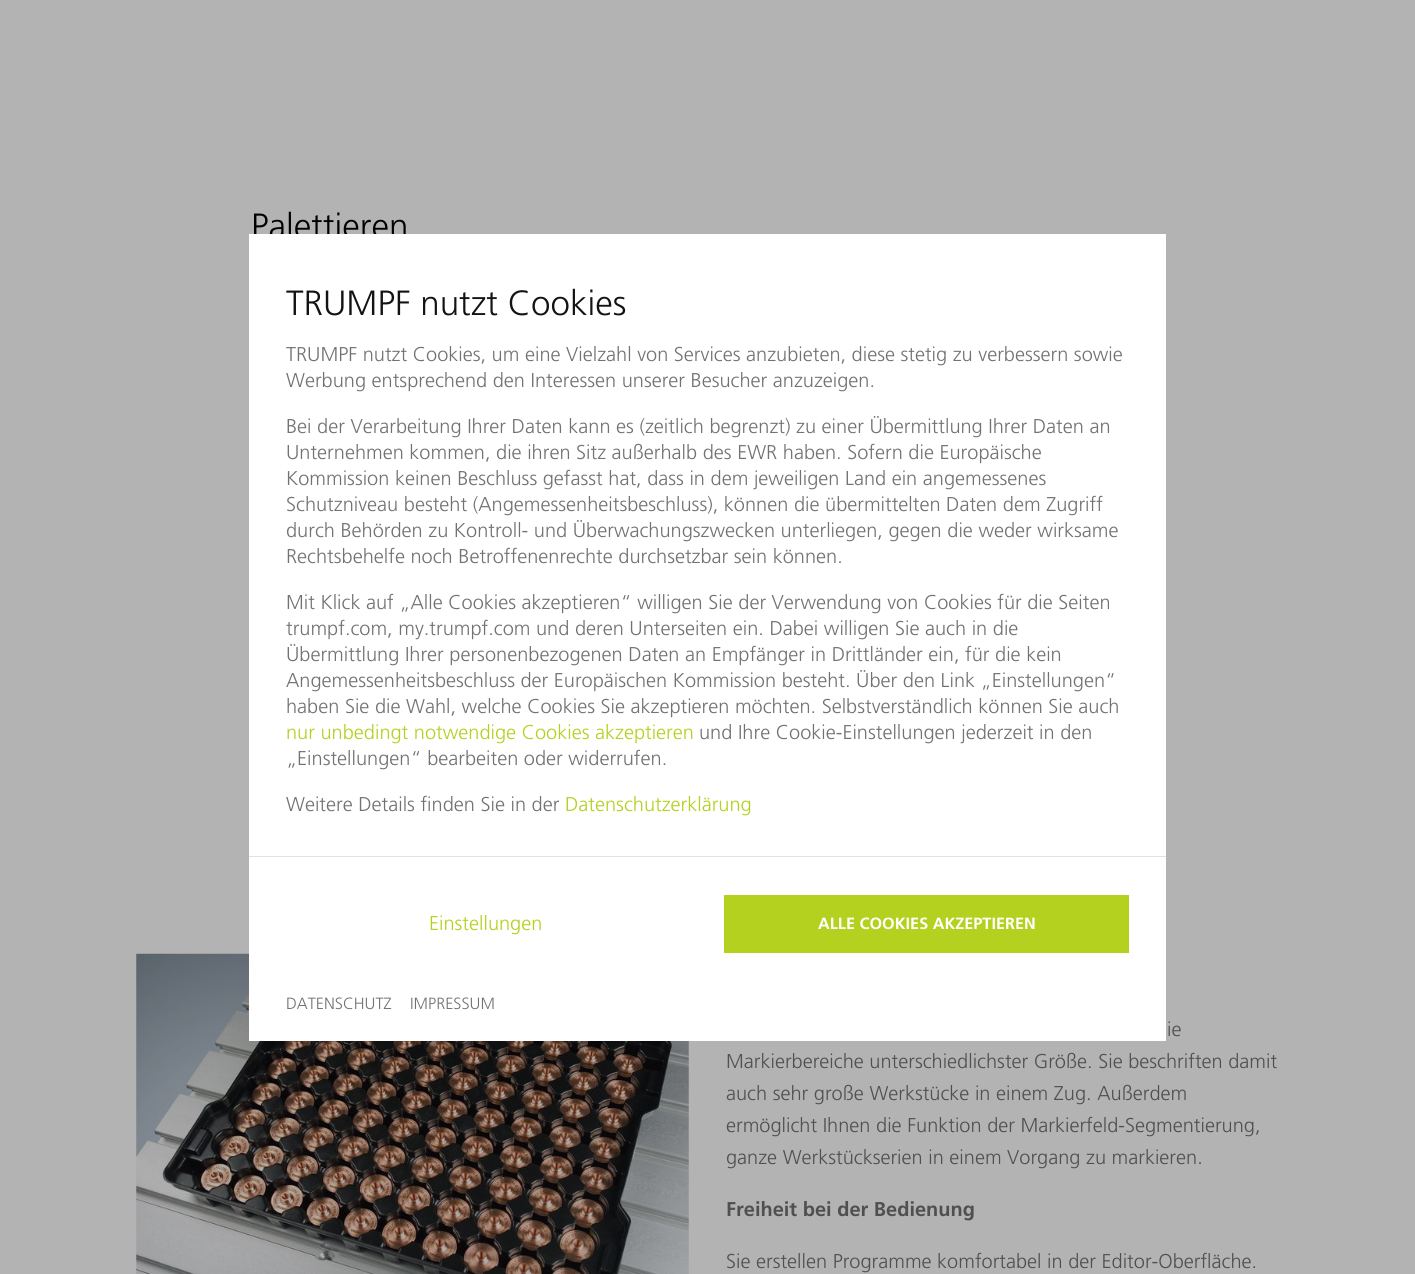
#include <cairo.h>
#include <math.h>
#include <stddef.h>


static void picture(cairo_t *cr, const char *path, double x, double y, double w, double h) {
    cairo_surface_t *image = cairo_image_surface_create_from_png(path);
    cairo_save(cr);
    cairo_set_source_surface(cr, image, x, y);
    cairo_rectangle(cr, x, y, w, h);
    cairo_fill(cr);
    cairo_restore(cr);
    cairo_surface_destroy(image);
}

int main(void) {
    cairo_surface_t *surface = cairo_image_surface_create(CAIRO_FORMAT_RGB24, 1415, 1274);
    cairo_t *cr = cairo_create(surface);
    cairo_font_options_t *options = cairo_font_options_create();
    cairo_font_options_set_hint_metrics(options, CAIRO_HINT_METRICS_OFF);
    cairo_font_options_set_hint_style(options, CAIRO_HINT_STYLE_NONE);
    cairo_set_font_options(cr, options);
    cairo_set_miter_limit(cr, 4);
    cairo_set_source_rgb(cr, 0.702, 0.702, 0.702);
    cairo_paint(cr);
    cairo_select_font_face(cr, "Frutiger Light", CAIRO_FONT_SLANT_NORMAL, CAIRO_FONT_WEIGHT_NORMAL);
    cairo_set_font_size(cr, 35);
    cairo_set_source_rgb(cr, 0, 0, 0);
    cairo_move_to(cr, 251, 238);
    cairo_show_text(cr, "Palettieren");
    picture(cr, "img1.png", 136, 953, 553, 321);
    cairo_set_font_size(cr, 20);
    cairo_set_source_rgb(cr, 0.314, 0.314, 0.314);
    cairo_move_to(cr, 1167, 1036);
    cairo_show_text(cr, "ie");
    cairo_move_to(cr, 726, 1068);
    cairo_show_text(cr, "Markierbereiche unterschiedlichster Größe. Sie beschriften damit");
    cairo_move_to(cr, 726, 1100);
    cairo_show_text(cr, "auch sehr große Werkstücke in einem Zug. Außerdem");
    cairo_move_to(cr, 726, 1132);
    cairo_show_text(cr, "ermöglicht Ihnen die Funktion der Markierfeld-Segmentierung,");
    cairo_move_to(cr, 726, 1164);
    cairo_show_text(cr, "ganze Werkstückserien in einem Vorgang zu markieren.");
    cairo_select_font_face(cr, "Frutiger", CAIRO_FONT_SLANT_NORMAL, CAIRO_FONT_WEIGHT_BOLD);
    cairo_move_to(cr, 726, 1216);
    cairo_show_text(cr, "Freiheit bei der Bedienung");
    cairo_select_font_face(cr, "Frutiger Light", CAIRO_FONT_SLANT_NORMAL, CAIRO_FONT_WEIGHT_NORMAL);
    cairo_move_to(cr, 726, 1268);
    cairo_show_text(cr, "Sie erstellen Programme komfortabel in der Editor-Oberfläche.");
    cairo_set_source_rgb(cr, 1, 1, 1);
    cairo_rectangle(cr, 249, 234, 917, 807);
    cairo_fill(cr);
    cairo_set_font_size(cr, 35);
    cairo_set_source_rgb(cr, 0.075, 0.075, 0.075);
    cairo_move_to(cr, 286, 315);
    cairo_show_text(cr, "TRUMPF nutzt Cookies");
    cairo_set_font_size(cr, 20);
    cairo_set_source_rgb(cr, 0.447, 0.447, 0.447);
    cairo_move_to(cr, 286, 361);
    cairo_show_text(cr, "TRUMPF nutzt Cookies, um eine Vielzahl von Services anzubieten, diese stetig zu verbessern sowie");
    cairo_move_to(cr, 286, 387);
    cairo_show_text(cr, "Werbung entsprechend den Interessen unserer Besucher anzuzeigen.");
    cairo_move_to(cr, 286, 433);
    cairo_show_text(cr, "Bei der Verarbeitung Ihrer Daten kann es (zeitlich begrenzt) zu einer Übermittlung Ihrer Daten an");
    cairo_move_to(cr, 286, 459);
    cairo_show_text(cr, "Unternehmen kommen, die ihren Sitz außerhalb des EWR haben. Sofern die Europäische");
    cairo_move_to(cr, 286, 485);
    cairo_show_text(cr, "Kommission keinen Beschluss gefasst hat, dass in dem jeweiligen Land ein angemessenes");
    cairo_move_to(cr, 286, 511);
    cairo_show_text(cr, "Schutzniveau besteht (Angemessenheitsbeschluss), können die übermittelten Daten dem Zugriff");
    cairo_move_to(cr, 286, 537);
    cairo_show_text(cr, "durch Behörden zu Kontroll- und Überwachungszwecken unterliegen, gegen die weder wirksame");
    cairo_move_to(cr, 286, 563);
    cairo_show_text(cr, "Rechtsbehelfe noch Betroffenenrechte durchsetzbar sein können.");
    cairo_move_to(cr, 286, 609);
    cairo_show_text(cr, "Mit Klick auf „Alle Cookies akzeptieren“ willigen Sie der Verwendung von Cookies für die Seiten");
    cairo_move_to(cr, 286, 635);
    cairo_show_text(cr, "trumpf.com, my.trumpf.com und deren Unterseiten ein. Dabei willigen Sie auch in die");
    cairo_move_to(cr, 286, 661);
    cairo_show_text(cr, "Übermittlung Ihrer personenbezogenen Daten an Empfänger in Drittländer ein, für die kein");
    cairo_move_to(cr, 286, 687);
    cairo_show_text(cr, "Angemessenheitsbeschluss der Europäischen Kommission besteht. Über den Link „Einstellungen“");
    cairo_move_to(cr, 286, 713);
    cairo_show_text(cr, "haben Sie die Wahl, welche Cookies Sie akzeptieren möchten. Selbstverständlich können Sie auch");
    cairo_set_source_rgb(cr, 0.702, 0.82, 0.118);
    cairo_move_to(cr, 286, 739);
    cairo_show_text(cr, "nur unbedingt notwendige Cookies akzeptieren");
    cairo_set_source_rgb(cr, 0.447, 0.447, 0.447);
    cairo_move_to(cr, 699, 739);
    cairo_show_text(cr, "und Ihre Cookie-Einstellungen jederzeit in den");
    cairo_move_to(cr, 286, 765);
    cairo_show_text(cr, "„Einstellungen“ bearbeiten oder widerrufen.");
    cairo_move_to(cr, 286, 811);
    cairo_show_text(cr, "Weitere Details finden Sie in der");
    cairo_set_source_rgb(cr, 0.702, 0.82, 0.118);
    cairo_move_to(cr, 565, 811);
    cairo_show_text(cr, "Datenschutzerklärung");
    cairo_set_source_rgb(cr, 0.886, 0.886, 0.886);
    cairo_rectangle(cr, 249, 856, 917, 1);
    cairo_fill(cr);
    cairo_set_source_rgb(cr, 0.702, 0.82, 0.118);
    cairo_move_to(cr, 429, 930);
    cairo_show_text(cr, "Einstellungen");
    cairo_rectangle(cr, 724, 895, 405, 58);
    cairo_fill(cr);
    cairo_select_font_face(cr, "Frutiger", CAIRO_FONT_SLANT_NORMAL, CAIRO_FONT_WEIGHT_BOLD);
    cairo_set_font_size(cr, 16.25);
    cairo_set_source_rgb(cr, 1, 1, 1);
    cairo_move_to(cr, 818, 929);
    cairo_show_text(cr, "ALLE COOKIES AKZEPTIEREN");
    cairo_select_font_face(cr, "Frutiger Light", CAIRO_FONT_SLANT_NORMAL, CAIRO_FONT_WEIGHT_NORMAL);
    cairo_set_source_rgb(cr, 0.447, 0.447, 0.447);
    cairo_move_to(cr, 286, 1009);
    cairo_show_text(cr, "DATENSCHUTZ");
    cairo_move_to(cr, 410, 1009);
    cairo_show_text(cr, "IMPRESSUM");
    cairo_surface_write_to_png(surface, "page.png");
    cairo_font_options_destroy(options);
    cairo_destroy(cr);
    cairo_surface_destroy(surface);
    return 0;
}
